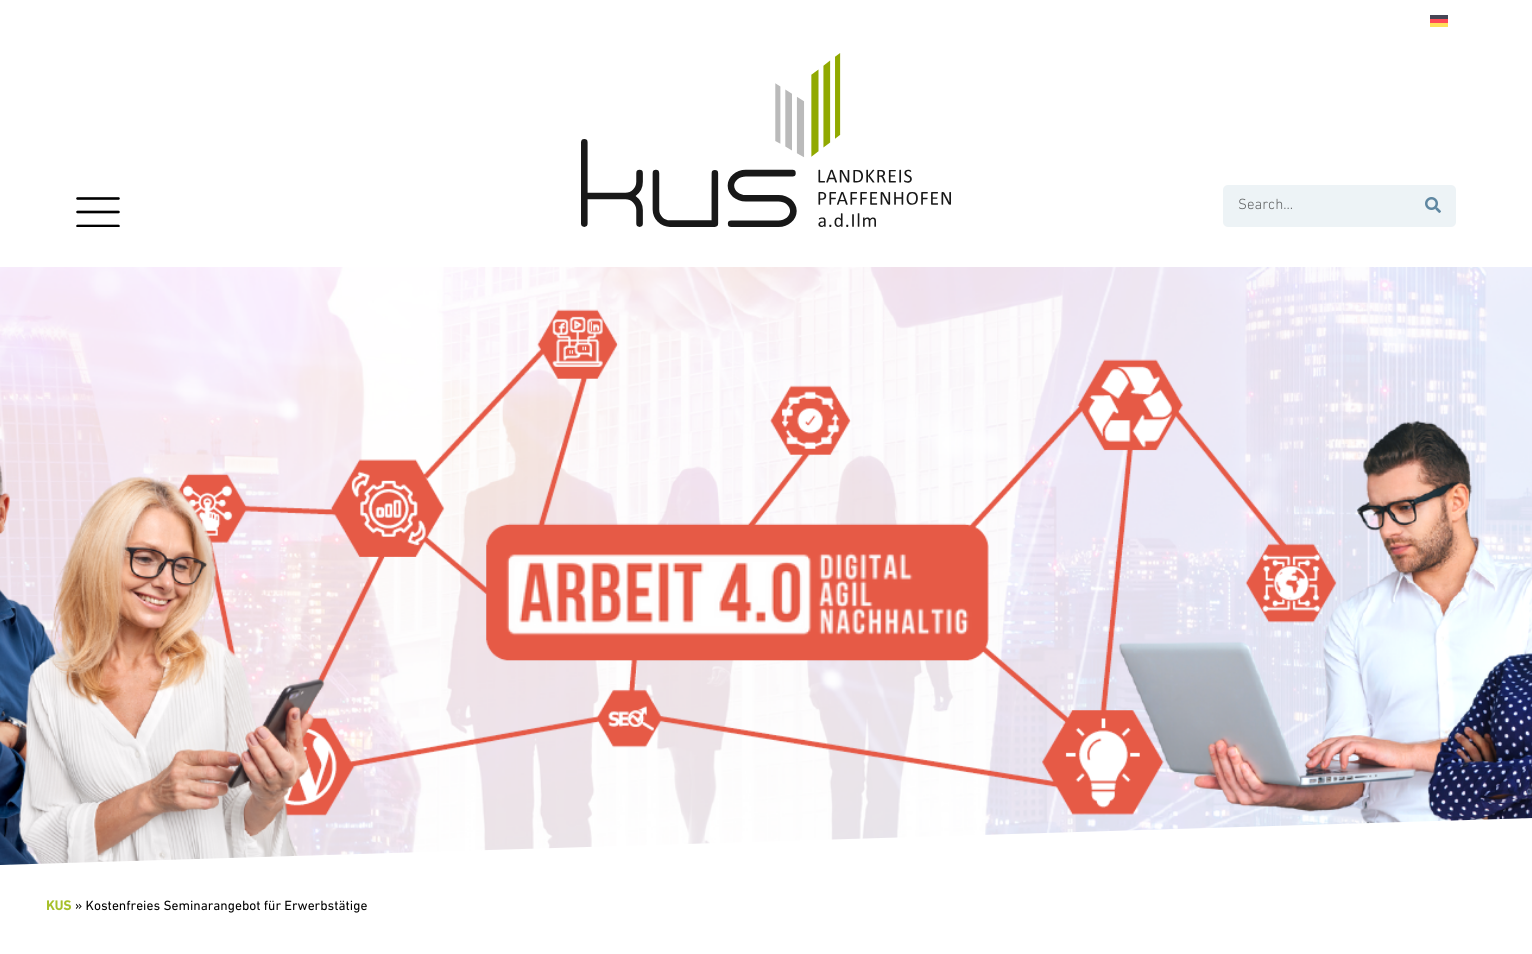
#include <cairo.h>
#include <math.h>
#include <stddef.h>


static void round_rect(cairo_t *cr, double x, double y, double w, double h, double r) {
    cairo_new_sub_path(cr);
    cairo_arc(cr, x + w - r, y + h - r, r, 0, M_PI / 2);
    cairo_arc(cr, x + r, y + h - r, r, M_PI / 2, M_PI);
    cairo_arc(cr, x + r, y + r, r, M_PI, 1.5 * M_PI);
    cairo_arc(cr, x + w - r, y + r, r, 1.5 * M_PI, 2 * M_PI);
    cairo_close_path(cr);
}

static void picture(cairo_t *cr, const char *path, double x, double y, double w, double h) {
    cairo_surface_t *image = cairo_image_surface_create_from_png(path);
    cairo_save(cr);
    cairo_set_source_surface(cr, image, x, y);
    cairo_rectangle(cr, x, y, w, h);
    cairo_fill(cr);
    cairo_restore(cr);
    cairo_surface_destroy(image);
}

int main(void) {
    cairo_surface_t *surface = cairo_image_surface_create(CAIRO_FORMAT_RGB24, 1532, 954);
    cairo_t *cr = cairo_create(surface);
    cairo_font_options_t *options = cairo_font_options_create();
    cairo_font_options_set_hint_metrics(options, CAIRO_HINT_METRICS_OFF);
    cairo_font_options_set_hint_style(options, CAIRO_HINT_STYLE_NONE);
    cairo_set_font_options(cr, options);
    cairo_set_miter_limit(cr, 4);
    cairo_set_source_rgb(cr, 1, 1, 1);
    cairo_paint(cr);
    cairo_set_source_rgb(cr, 0.275, 0.275, 0.333);
    cairo_rectangle(cr, 1430, 15, 18, 4);
    cairo_fill(cr);
    cairo_set_source_rgb(cr, 1, 0.294, 0.333);
    cairo_rectangle(cr, 1430, 19, 18, 4);
    cairo_fill(cr);
    cairo_set_source_rgb(cr, 1, 0.882, 0.353);
    cairo_rectangle(cr, 1430, 23, 18, 4);
    cairo_fill(cr);
    cairo_new_path(cr);
    cairo_move_to(cr, 77.5, 212);
    cairo_line_to(cr, 118.5, 212);
    cairo_move_to(cr, 77.5, 198.5);
    cairo_line_to(cr, 118.5, 198.5);
    cairo_set_source_rgb(cr, 0, 0, 0);
    cairo_set_line_width(cr, 2.6);
    cairo_set_line_cap(cr, CAIRO_LINE_CAP_ROUND);
    cairo_set_line_join(cr, CAIRO_LINE_JOIN_ROUND);
    cairo_stroke(cr);
    cairo_save(cr);
    cairo_rectangle(cr, 76, 197, 44, 30);
    cairo_clip(cr);
    cairo_new_path(cr);
    cairo_move_to(cr, 77.5, 226);
    cairo_line_to(cr, 118.5, 226);
    cairo_stroke(cr);
    cairo_restore(cr);
    picture(cr, "img1.png", 581, 53, 370, 174);
    cairo_set_source_rgb(cr, 0.929, 0.953, 0.961);
    round_rect(cr, 1223, 185, 233, 42, 5);
    cairo_fill(cr);
    cairo_select_font_face(cr, "DIN Next Light", CAIRO_FONT_SLANT_NORMAL, CAIRO_FONT_WEIGHT_NORMAL);
    cairo_set_font_size(cr, 15);
    cairo_set_source_rgb(cr, 0.373, 0.38, 0.384);
    cairo_move_to(cr, 1238, 209);
    cairo_show_text(cr, "Search...");
    picture(cr, "img2.png", 1425, 197, 16, 16);
    picture(cr, "img3.png", 0, 267, 1532, 598);
    cairo_set_source_rgb(cr, 1, 1, 1);
    cairo_new_path(cr);
    cairo_move_to(cr, -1, 865);
    cairo_line_to(cr, -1, 868);
    cairo_line_to(cr, 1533, 868);
    cairo_line_to(cr, 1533, 818);
    cairo_close_path(cr);
    cairo_fill(cr);
    cairo_select_font_face(cr, "DIN Next", CAIRO_FONT_SLANT_NORMAL, CAIRO_FONT_WEIGHT_BOLD);
    cairo_set_font_size(cr, 13.6);
    cairo_set_source_rgb(cr, 0.655, 0.753, 0.169);
    cairo_move_to(cr, 46, 910);
    cairo_show_text(cr, "KUS");
    cairo_select_font_face(cr, "DIN Next", CAIRO_FONT_SLANT_NORMAL, CAIRO_FONT_WEIGHT_NORMAL);
    cairo_set_source_rgb(cr, 0, 0, 0);
    cairo_move_to(cr, 75, 910);
    cairo_show_text(cr, "» Kostenfreies Seminarangebot für Erwerbstätige");
    cairo_surface_write_to_png(surface, "page.png");
    cairo_font_options_destroy(options);
    cairo_destroy(cr);
    cairo_surface_destroy(surface);
    return 0;
}
